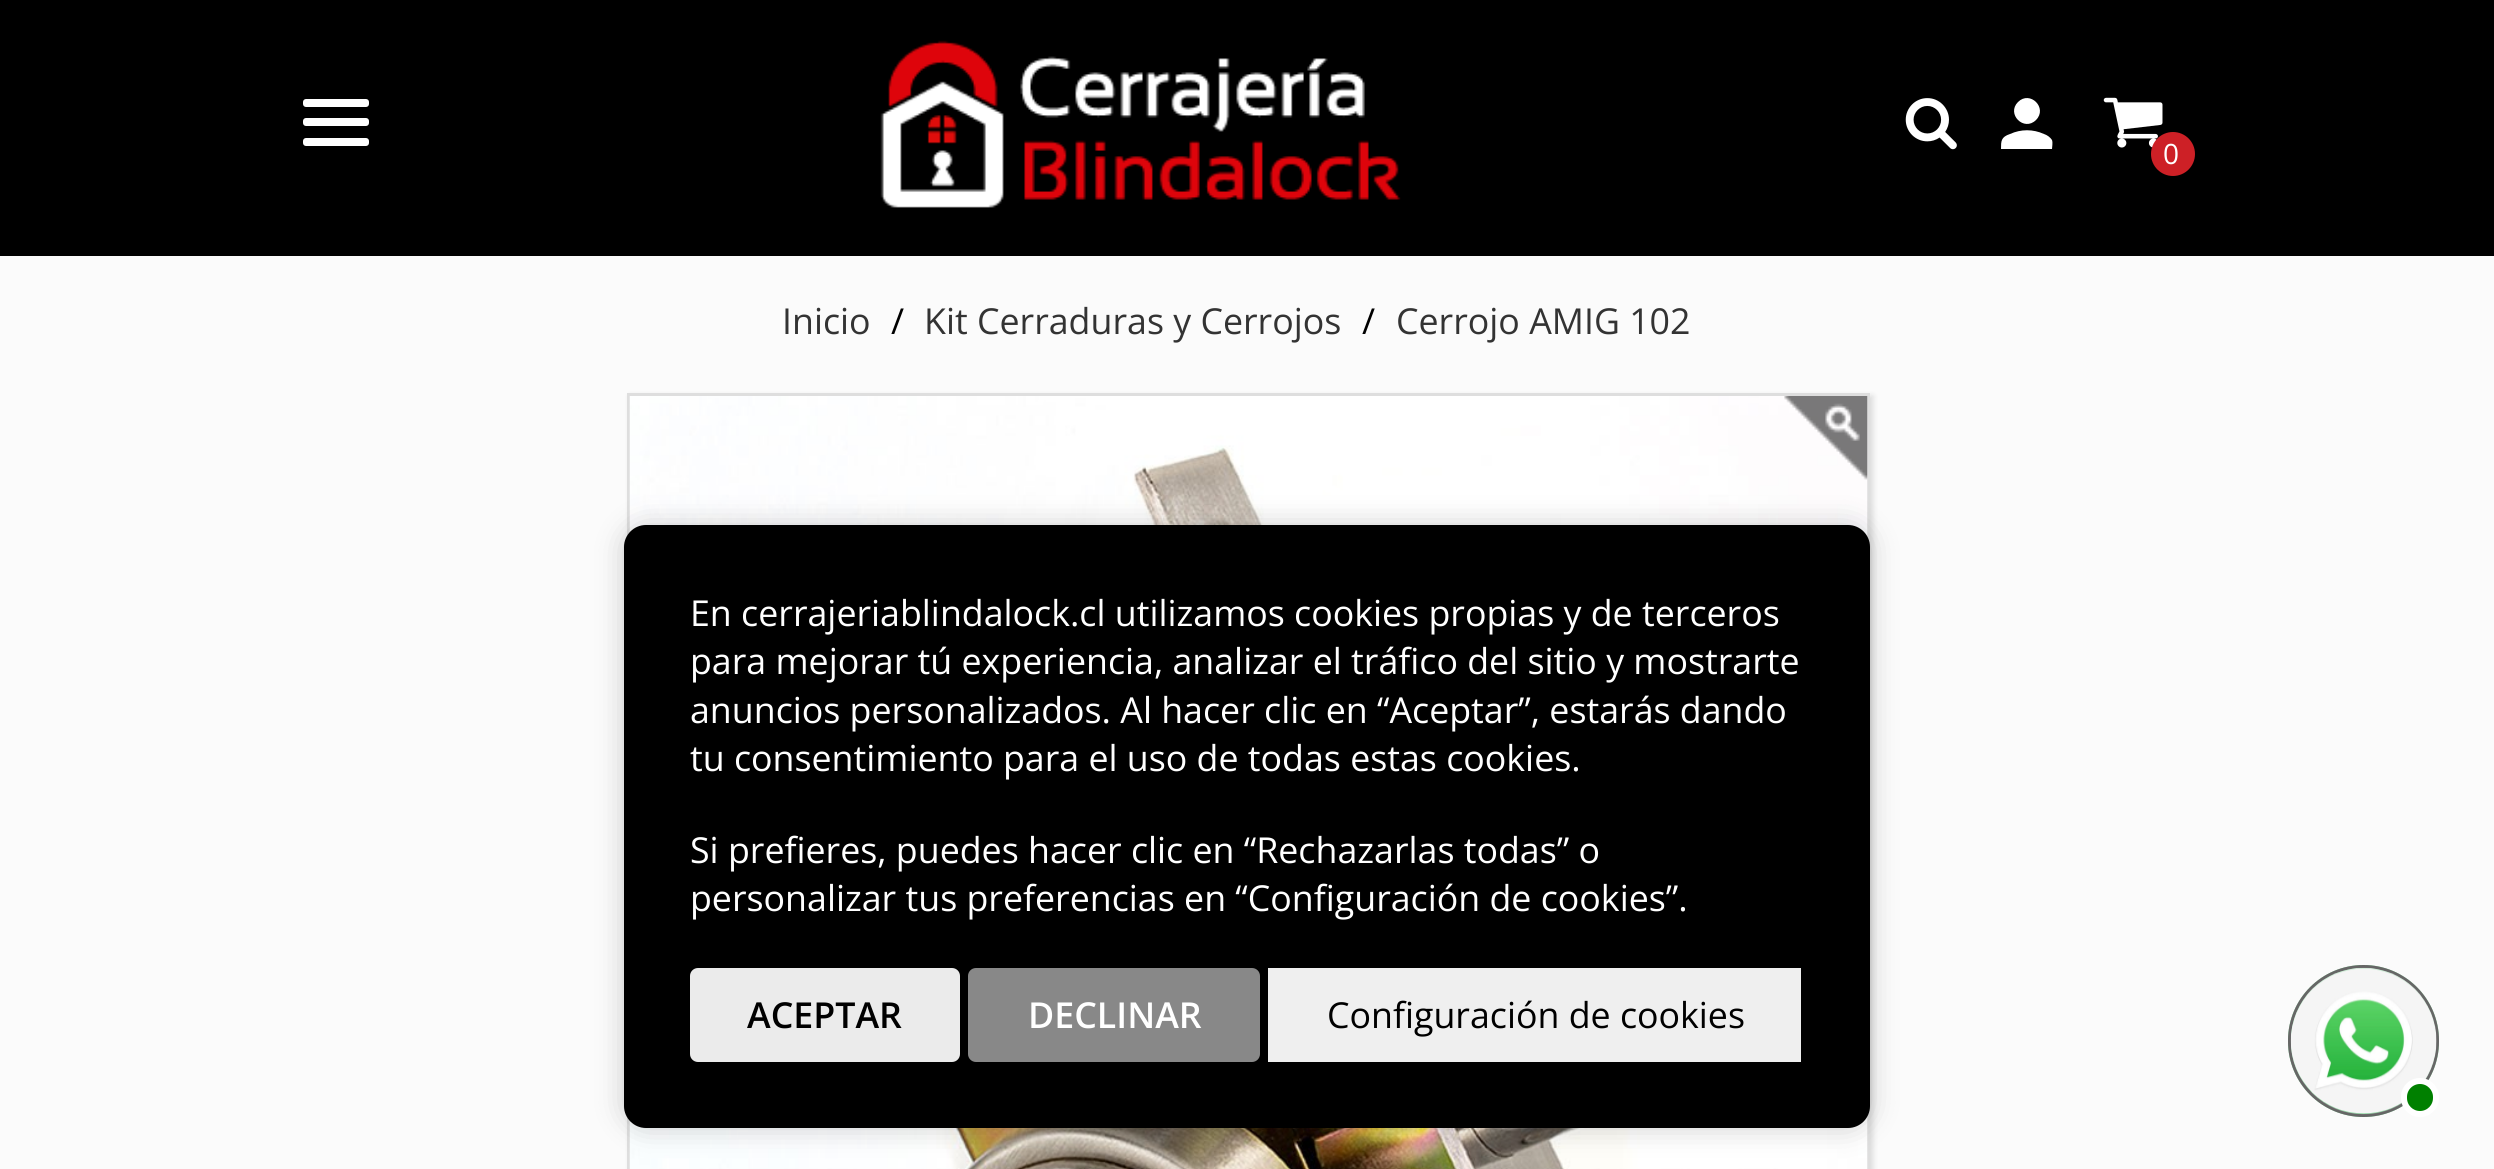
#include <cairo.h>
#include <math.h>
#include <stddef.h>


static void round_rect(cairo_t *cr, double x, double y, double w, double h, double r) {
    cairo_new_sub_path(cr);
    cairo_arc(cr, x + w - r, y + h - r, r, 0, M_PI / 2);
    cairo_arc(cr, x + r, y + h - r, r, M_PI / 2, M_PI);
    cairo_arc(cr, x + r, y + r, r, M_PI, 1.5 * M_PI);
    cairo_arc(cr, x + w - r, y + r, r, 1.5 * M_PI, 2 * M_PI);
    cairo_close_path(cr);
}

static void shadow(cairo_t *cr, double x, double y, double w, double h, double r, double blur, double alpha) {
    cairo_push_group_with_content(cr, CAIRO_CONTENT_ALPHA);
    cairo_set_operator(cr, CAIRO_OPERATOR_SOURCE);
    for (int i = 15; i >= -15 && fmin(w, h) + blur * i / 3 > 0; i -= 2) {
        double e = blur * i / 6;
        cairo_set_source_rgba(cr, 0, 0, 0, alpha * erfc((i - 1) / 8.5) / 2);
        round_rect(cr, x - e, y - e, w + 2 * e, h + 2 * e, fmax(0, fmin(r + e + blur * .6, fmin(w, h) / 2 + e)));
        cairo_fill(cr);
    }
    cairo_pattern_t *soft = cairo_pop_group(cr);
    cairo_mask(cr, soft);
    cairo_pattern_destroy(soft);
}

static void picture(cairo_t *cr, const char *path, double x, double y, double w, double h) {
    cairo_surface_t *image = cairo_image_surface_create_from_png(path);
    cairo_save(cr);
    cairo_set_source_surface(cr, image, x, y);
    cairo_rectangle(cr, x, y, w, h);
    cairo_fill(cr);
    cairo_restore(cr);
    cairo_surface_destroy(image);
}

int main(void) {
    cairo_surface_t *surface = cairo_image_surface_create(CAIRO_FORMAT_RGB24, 2494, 1169);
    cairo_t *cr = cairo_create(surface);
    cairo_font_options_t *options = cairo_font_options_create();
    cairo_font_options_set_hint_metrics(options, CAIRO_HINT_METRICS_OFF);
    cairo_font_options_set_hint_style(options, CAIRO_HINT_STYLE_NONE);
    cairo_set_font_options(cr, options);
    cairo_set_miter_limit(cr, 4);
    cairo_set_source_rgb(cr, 0.984, 0.984, 0.984);
    cairo_paint(cr);
    cairo_set_source_rgb(cr, 0, 0, 0);
    cairo_rectangle(cr, 0, 0, 2494, 256);
    cairo_fill(cr);
    cairo_set_source_rgb(cr, 1, 1, 1);
    round_rect(cr, 303, 118, 66, 8, 3);
    cairo_fill(cr);
    round_rect(cr, 303, 99, 66, 8, 3);
    cairo_fill(cr);
    round_rect(cr, 303, 138, 66, 8, 3);
    cairo_fill(cr);
    picture(cr, "img1.png", 880, 40, 521, 168);
    picture(cr, "img2.png", 1905, 98, 52, 52);
    cairo_new_path(cr);
    cairo_move_to(cr, 2010, 134);
    cairo_curve_to(cr, 2021, 129, 2033, 129, 2044, 134);
    cairo_curve_to(cr, 2047, 135, 2050, 137, 2052, 140);
    cairo_curve_to(cr, 2053, 143, 2052, 147, 2052, 149);
    cairo_line_to(cr, 2001, 149);
    cairo_curve_to(cr, 2001, 141, 2001, 137, 2010, 134);
    cairo_close_path(cr);
    cairo_move_to(cr, 2036, 120);
    cairo_curve_to(cr, 2024, 132, 2006, 114, 2018, 102);
    cairo_curve_to(cr, 2030, 90, 2048, 108, 2036, 120);
    cairo_close_path(cr);
    cairo_fill(cr);
    picture(cr, "img3.png", 2103, 97, 60, 51);
    cairo_set_source_rgb(cr, 0.804, 0.125, 0.149);
    cairo_arc(cr, 2173, 154, 22, 0, 2 * M_PI);
    cairo_fill(cr);
    cairo_select_font_face(cr, "Open Sans", CAIRO_FONT_SLANT_NORMAL, CAIRO_FONT_WEIGHT_NORMAL);
    cairo_set_font_size(cr, 28);
    cairo_set_source_rgb(cr, 1, 1, 1);
    cairo_move_to(cr, 2163, 164);
    cairo_show_text(cr, "0");
    cairo_set_font_size(cr, 35.75);
    cairo_set_source_rgb(cr, 0.2, 0.2, 0.2);
    cairo_move_to(cr, 782, 334);
    cairo_show_text(cr, "Inicio");
    cairo_set_source_rgb(cr, 0, 0, 0);
    cairo_move_to(cr, 891, 334);
    cairo_show_text(cr, "/");
    cairo_set_source_rgb(cr, 0.2, 0.2, 0.2);
    cairo_move_to(cr, 924, 334);
    cairo_show_text(cr, "Kit Cerraduras y Cerrojos");
    cairo_set_source_rgb(cr, 0, 0, 0);
    cairo_move_to(cr, 1362, 334);
    cairo_show_text(cr, "/");
    cairo_set_source_rgb(cr, 0.2, 0.2, 0.2);
    cairo_move_to(cr, 1396, 334);
    cairo_show_text(cr, "Cerrojo AMIG 102");
    cairo_set_source_rgb(cr, 0, 0, 0);
    shadow(cr, 630, 396, 1243, 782, 0, 3, 0.13);
    cairo_rectangle(cr, 628.5, 394.5, 1240, 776);
    cairo_set_source_rgb(cr, 0.871, 0.871, 0.871);
    cairo_set_line_width(cr, 3);
    cairo_stroke(cr);
    picture(cr, "img4.png", 629, 396, 1239, 773);
    picture(cr, "img5.png", 1784, 396, 84, 84);
    cairo_set_source_rgb(cr, 0.765, 0.918, 0.804);
    round_rect(cr, 2288, 965, 151, 152, 75.5);
    cairo_fill(cr);
    cairo_set_source_rgba(cr, 0.102, 0.718, 0.267, 0.25);
    round_rect(cr, 2288, 965, 151, 152, 75.5);
    cairo_fill(cr);
    round_rect(cr, 2289.5, 966.5, 148, 149, 74);
    cairo_fill_preserve(cr);
    cairo_set_source_rgb(cr, 0.4, 0.4, 0.4);
    cairo_stroke(cr);
    picture(cr, "img6.png", 2290, 967, 147, 148);
    cairo_set_source_rgb(cr, 0, 0.502, 0);
    round_rect(cr, 2404, 1081, 32, 33, 16);
    cairo_fill_preserve(cr);
    cairo_set_source_rgb(cr, 1, 1, 1);
    cairo_set_line_width(cr, 6);
    cairo_stroke(cr);
    cairo_set_source_rgb(cr, 0, 0, 0);
    shadow(cr, 624, 525, 1246, 603, 22, 14, 0.2);
    cairo_set_source_rgb(cr, 0, 0, 0);
    round_rect(cr, 624, 525, 1246, 603, 22);
    cairo_fill(cr);
    cairo_set_source_rgb(cr, 1, 1, 1);
    cairo_move_to(cr, 690, 626);
    cairo_show_text(cr, "En cerrajeriablindalock.cl utilizamos cookies propias y de terceros");
    cairo_move_to(cr, 690, 674);
    cairo_show_text(cr, "para mejorar tú experiencia, analizar el tráfico del sitio y mostrarte");
    cairo_move_to(cr, 690, 723);
    cairo_show_text(cr, "anuncios personalizados. Al hacer clic en “Aceptar”, estarás dando");
    cairo_move_to(cr, 690, 771);
    cairo_show_text(cr, "tu consentimiento para el uso de todas estas cookies.");
    cairo_move_to(cr, 690, 863);
    cairo_show_text(cr, "Si prefieres, puedes hacer clic en “Rechazarlas todas” o");
    cairo_move_to(cr, 690, 911);
    cairo_show_text(cr, "personalizar tus preferencias en “Configuración de cookies”.");
    cairo_set_source_rgb(cr, 0.918, 0.918, 0.918);
    round_rect(cr, 690, 968, 270, 94, 8);
    cairo_fill(cr);
    cairo_select_font_face(cr, "Open Sans SemiBold", CAIRO_FONT_SLANT_NORMAL, CAIRO_FONT_WEIGHT_NORMAL);
    cairo_set_source_rgb(cr, 0, 0, 0);
    cairo_move_to(cr, 747, 1028);
    cairo_show_text(cr, "ACEPTAR");
    cairo_set_source_rgb(cr, 0.533, 0.533, 0.533);
    round_rect(cr, 968, 968, 292, 94, 8);
    cairo_fill(cr);
    cairo_set_source_rgb(cr, 1, 1, 1);
    cairo_move_to(cr, 1028, 1028);
    cairo_show_text(cr, "DECLINAR");
    cairo_set_source_rgb(cr, 0.937, 0.937, 0.937);
    cairo_rectangle(cr, 1268, 968, 533, 94);
    cairo_fill(cr);
    cairo_select_font_face(cr, "Open Sans", CAIRO_FONT_SLANT_NORMAL, CAIRO_FONT_WEIGHT_NORMAL);
    cairo_set_source_rgb(cr, 0, 0, 0);
    cairo_move_to(cr, 1327, 1028);
    cairo_show_text(cr, "Configuración de cookies");
    cairo_surface_write_to_png(surface, "page.png");
    cairo_font_options_destroy(options);
    cairo_destroy(cr);
    cairo_surface_destroy(surface);
    return 0;
}
